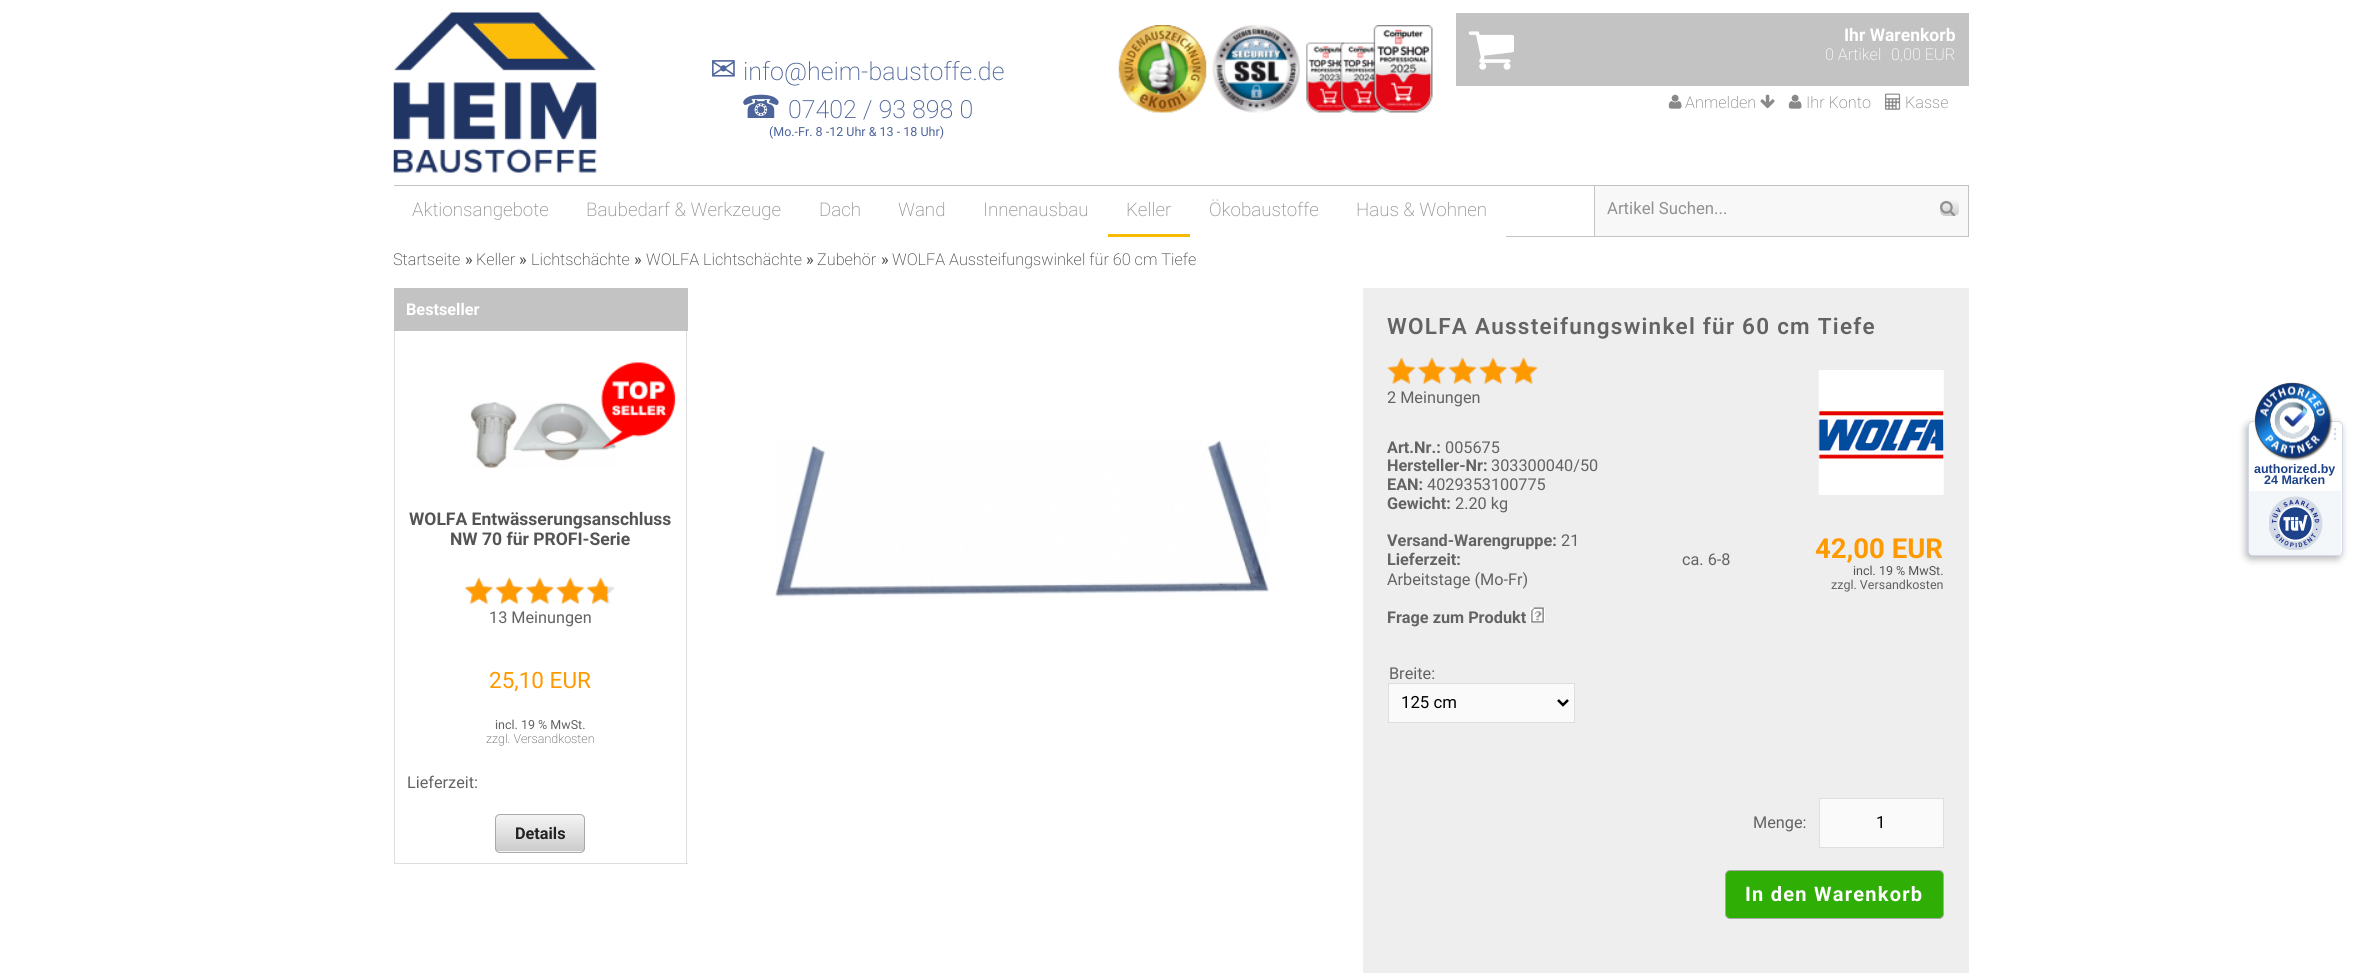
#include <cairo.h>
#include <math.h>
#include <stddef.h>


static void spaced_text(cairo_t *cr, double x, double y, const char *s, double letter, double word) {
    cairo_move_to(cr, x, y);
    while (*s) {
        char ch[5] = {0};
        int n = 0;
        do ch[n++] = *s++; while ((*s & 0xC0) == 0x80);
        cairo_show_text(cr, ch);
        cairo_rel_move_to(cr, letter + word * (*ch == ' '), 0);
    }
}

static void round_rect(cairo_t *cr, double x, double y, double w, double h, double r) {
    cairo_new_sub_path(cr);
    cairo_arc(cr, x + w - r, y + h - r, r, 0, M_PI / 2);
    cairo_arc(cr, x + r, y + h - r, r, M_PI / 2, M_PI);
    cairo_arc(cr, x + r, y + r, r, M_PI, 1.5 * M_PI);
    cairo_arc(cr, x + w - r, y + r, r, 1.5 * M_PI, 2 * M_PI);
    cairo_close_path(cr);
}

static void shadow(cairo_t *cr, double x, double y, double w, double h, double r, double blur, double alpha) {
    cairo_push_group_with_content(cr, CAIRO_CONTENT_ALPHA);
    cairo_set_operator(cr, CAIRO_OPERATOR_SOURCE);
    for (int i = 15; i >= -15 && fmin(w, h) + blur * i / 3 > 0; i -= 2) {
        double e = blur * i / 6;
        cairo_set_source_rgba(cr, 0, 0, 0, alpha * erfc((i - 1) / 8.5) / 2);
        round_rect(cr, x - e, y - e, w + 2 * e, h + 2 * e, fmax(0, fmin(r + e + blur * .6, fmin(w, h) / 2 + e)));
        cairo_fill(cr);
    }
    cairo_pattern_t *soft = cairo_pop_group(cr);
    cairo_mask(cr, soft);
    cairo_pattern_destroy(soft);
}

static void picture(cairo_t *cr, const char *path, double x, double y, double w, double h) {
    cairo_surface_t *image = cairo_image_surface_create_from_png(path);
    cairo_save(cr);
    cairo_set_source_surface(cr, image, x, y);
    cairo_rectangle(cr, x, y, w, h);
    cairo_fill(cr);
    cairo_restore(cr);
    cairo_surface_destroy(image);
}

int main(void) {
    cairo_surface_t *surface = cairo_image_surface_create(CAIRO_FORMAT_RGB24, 2361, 977);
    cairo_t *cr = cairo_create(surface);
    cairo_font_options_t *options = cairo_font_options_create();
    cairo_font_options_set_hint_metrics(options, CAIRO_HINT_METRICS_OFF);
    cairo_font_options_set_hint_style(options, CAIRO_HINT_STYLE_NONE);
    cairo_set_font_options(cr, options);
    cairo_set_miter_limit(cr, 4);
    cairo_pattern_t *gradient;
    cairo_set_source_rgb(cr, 1, 1, 1);
    cairo_paint(cr);
    picture(cr, "img1.png", 393, 12, 204, 161);
    cairo_select_font_face(cr, "DejaVu Sans", CAIRO_FONT_SLANT_NORMAL, CAIRO_FONT_WEIGHT_NORMAL);
    cairo_set_font_size(cr, 32);
    cairo_set_source_rgb(cr, 0.298, 0.392, 0.6);
    cairo_move_to(cr, 710, 80);
    cairo_show_text(cr, "✉");
    cairo_select_font_face(cr, "Roboto ExtraLight", CAIRO_FONT_SLANT_NORMAL, CAIRO_FONT_WEIGHT_NORMAL);
    cairo_set_font_size(cr, 25);
    cairo_move_to(cr, 743, 80);
    cairo_show_text(cr, "info@heim-baustoffe.de");
    cairo_select_font_face(cr, "DejaVu Sans", CAIRO_FONT_SLANT_NORMAL, CAIRO_FONT_WEIGHT_NORMAL);
    cairo_set_font_size(cr, 32);
    cairo_move_to(cr, 741, 118);
    cairo_show_text(cr, "☎");
    cairo_select_font_face(cr, "Roboto ExtraLight", CAIRO_FONT_SLANT_NORMAL, CAIRO_FONT_WEIGHT_NORMAL);
    cairo_set_font_size(cr, 25);
    cairo_move_to(cr, 788, 118);
    cairo_show_text(cr, "07402 / 93 898 0");
    picture(cr, "img2.png", 1118, 25, 89, 88);
    picture(cr, "img3.png", 1212, 25, 88, 88);
    picture(cr, "img4.png", 1306, 25, 127, 88);
    cairo_set_source_rgb(cr, 0.765, 0.765, 0.765);
    cairo_rectangle(cr, 1456, 13, 513, 73);
    cairo_fill(cr);
    picture(cr, "img5.png", 1468, 31, 46, 39);
    cairo_select_font_face(cr, "Roboto", CAIRO_FONT_SLANT_NORMAL, CAIRO_FONT_WEIGHT_BOLD);
    cairo_set_font_size(cr, 17.5);
    cairo_set_source_rgb(cr, 1, 1, 1);
    cairo_move_to(cr, 1844, 41);
    cairo_show_text(cr, "Ihr Warenkorb");
    cairo_select_font_face(cr, "Roboto ExtraLight", CAIRO_FONT_SLANT_NORMAL, CAIRO_FONT_WEIGHT_NORMAL);
    cairo_set_font_size(cr, 16.25);
    cairo_move_to(cr, 1825, 60);
    cairo_show_text(cr, "0 Artikel");
    cairo_move_to(cr, 1891, 60);
    cairo_show_text(cr, "0,00 EUR");
    picture(cr, "img6.png", 1668, 94, 14, 15);
    cairo_set_source_rgb(cr, 0.537, 0.537, 0.537);
    cairo_move_to(cr, 1685, 108);
    cairo_show_text(cr, "Anmelden");
    picture(cr, "img7.png", 1760, 94, 15, 15);
    picture(cr, "img6.png", 1788, 94, 14, 15);
    cairo_move_to(cr, 1806, 108);
    cairo_show_text(cr, "Ihr Konto");
    picture(cr, "img8.png", 1885, 93, 16, 17);
    cairo_move_to(cr, 1905, 108);
    cairo_show_text(cr, "Kasse");
    cairo_select_font_face(cr, "Roboto", CAIRO_FONT_SLANT_NORMAL, CAIRO_FONT_WEIGHT_NORMAL);
    cairo_set_font_size(cr, 12.5);
    cairo_set_source_rgb(cr, 0.298, 0.392, 0.6);
    cairo_move_to(cr, 769, 136);
    cairo_show_text(cr, "(Mo.-Fr. 8 -12 Uhr & 13 - 18 Uhr)");
    cairo_set_source_rgb(cr, 0.765, 0.765, 0.765);
    cairo_rectangle(cr, 394, 185, 1575, 1);
    cairo_fill(cr);
    cairo_rectangle(cr, 1506, 236, 463, 1);
    cairo_fill(cr);
    cairo_select_font_face(cr, "Roboto ExtraLight", CAIRO_FONT_SLANT_NORMAL, CAIRO_FONT_WEIGHT_NORMAL);
    cairo_set_font_size(cr, 18.75);
    cairo_set_source_rgb(cr, 0.569, 0.569, 0.569);
    cairo_move_to(cr, 412, 216);
    cairo_show_text(cr, "Aktionsangebote");
    cairo_move_to(cr, 586, 216);
    cairo_show_text(cr, "Baubedarf & Werkzeuge");
    cairo_move_to(cr, 819, 216);
    cairo_show_text(cr, "Dach");
    cairo_move_to(cr, 898, 216);
    cairo_show_text(cr, "Wand");
    cairo_move_to(cr, 983, 216);
    cairo_show_text(cr, "Innenausbau");
    cairo_set_source_rgb(cr, 0.969, 0.729, 0);
    cairo_rectangle(cr, 1108, 234, 82, 3);
    cairo_fill(cr);
    cairo_set_source_rgb(cr, 0.569, 0.569, 0.569);
    cairo_move_to(cr, 1126, 216);
    cairo_show_text(cr, "Keller");
    cairo_move_to(cr, 1209, 216);
    cairo_show_text(cr, "Ökobaustoffe");
    cairo_move_to(cr, 1356, 216);
    cairo_show_text(cr, "Haus & Wohnen");
    cairo_set_source_rgb(cr, 0.969, 0.969, 0.969);
    cairo_rectangle(cr, 1595, 186, 373, 50);
    cairo_fill(cr);
    cairo_set_source_rgb(cr, 0.765, 0.765, 0.765);
    cairo_rectangle(cr, 1968, 186, 1, 50);
    cairo_fill(cr);
    cairo_rectangle(cr, 1594, 186, 1, 50);
    cairo_fill(cr);
    cairo_select_font_face(cr, "Roboto", CAIRO_FONT_SLANT_NORMAL, CAIRO_FONT_WEIGHT_NORMAL);
    cairo_set_font_size(cr, 16.75);
    cairo_set_source_rgb(cr, 0.569, 0.569, 0.569);
    cairo_move_to(cr, 1607, 214);
    cairo_show_text(cr, "Artikel Suchen...");
    gradient = cairo_pattern_create_linear(1940, 200, 1940, 216);
    cairo_pattern_add_color_stop_rgba(gradient, 0.05, 0.953, 0.953, 0.953, 1);
    cairo_pattern_add_color_stop_rgba(gradient, 1, 0.8, 0.8, 0.8, 1);
    cairo_set_source(cr, gradient);
    cairo_pattern_destroy(gradient);
    round_rect(cr, 1940, 200, 19, 16, 5);
    cairo_fill(cr);
    picture(cr, "img9.png", 1940, 201, 15, 15);
    cairo_select_font_face(cr, "Roboto ExtraLight", CAIRO_FONT_SLANT_NORMAL, CAIRO_FONT_WEIGHT_NORMAL);
    cairo_set_font_size(cr, 16.25);
    cairo_set_source_rgb(cr, 0.271, 0.271, 0.271);
    cairo_move_to(cr, 393, 265);
    cairo_show_text(cr, "Startseite");
    cairo_select_font_face(cr, "Roboto", CAIRO_FONT_SLANT_NORMAL, CAIRO_FONT_WEIGHT_NORMAL);
    cairo_move_to(cr, 465, 265);
    cairo_show_text(cr, "»");
    cairo_select_font_face(cr, "Roboto ExtraLight", CAIRO_FONT_SLANT_NORMAL, CAIRO_FONT_WEIGHT_NORMAL);
    cairo_move_to(cr, 476, 265);
    cairo_show_text(cr, "Keller");
    cairo_select_font_face(cr, "Roboto", CAIRO_FONT_SLANT_NORMAL, CAIRO_FONT_WEIGHT_NORMAL);
    cairo_move_to(cr, 519, 265);
    cairo_show_text(cr, "»");
    cairo_select_font_face(cr, "Roboto ExtraLight", CAIRO_FONT_SLANT_NORMAL, CAIRO_FONT_WEIGHT_NORMAL);
    cairo_move_to(cr, 531, 265);
    cairo_show_text(cr, "Lichtschächte");
    cairo_select_font_face(cr, "Roboto", CAIRO_FONT_SLANT_NORMAL, CAIRO_FONT_WEIGHT_NORMAL);
    cairo_move_to(cr, 634, 265);
    cairo_show_text(cr, "»");
    cairo_select_font_face(cr, "Roboto ExtraLight", CAIRO_FONT_SLANT_NORMAL, CAIRO_FONT_WEIGHT_NORMAL);
    cairo_move_to(cr, 646, 265);
    cairo_show_text(cr, "WOLFA Lichtschächte");
    cairo_select_font_face(cr, "Roboto", CAIRO_FONT_SLANT_NORMAL, CAIRO_FONT_WEIGHT_NORMAL);
    cairo_move_to(cr, 806, 265);
    cairo_show_text(cr, "»");
    cairo_select_font_face(cr, "Roboto ExtraLight", CAIRO_FONT_SLANT_NORMAL, CAIRO_FONT_WEIGHT_NORMAL);
    cairo_move_to(cr, 817, 265);
    cairo_show_text(cr, "Zubehör");
    cairo_select_font_face(cr, "Roboto", CAIRO_FONT_SLANT_NORMAL, CAIRO_FONT_WEIGHT_NORMAL);
    cairo_move_to(cr, 881, 265);
    cairo_show_text(cr, "»");
    cairo_select_font_face(cr, "Roboto ExtraLight", CAIRO_FONT_SLANT_NORMAL, CAIRO_FONT_WEIGHT_NORMAL);
    cairo_move_to(cr, 892, 265);
    cairo_show_text(cr, "WOLFA Aussteifungswinkel für 60 cm Tiefe");
    cairo_set_source_rgb(cr, 0.765, 0.765, 0.765);
    cairo_rectangle(cr, 394, 288, 294, 43);
    cairo_fill(cr);
    cairo_select_font_face(cr, "Roboto", CAIRO_FONT_SLANT_NORMAL, CAIRO_FONT_WEIGHT_BOLD);
    cairo_set_source_rgb(cr, 1, 1, 1);
    cairo_move_to(cr, 406, 315);
    cairo_show_text(cr, "Bestseller");
    cairo_set_source_rgb(cr, 0.871, 0.871, 0.871);
    cairo_rectangle(cr, 686, 331, 1, 533);
    cairo_fill(cr);
    cairo_rectangle(cr, 394, 863, 294, 1);
    cairo_fill(cr);
    cairo_rectangle(cr, 394, 331, 1, 533);
    cairo_fill(cr);
    picture(cr, "img10.png", 470, 402, 147, 67);
    picture(cr, "img11.png", 601, 362, 75, 87);
    cairo_set_font_size(cr, 17.5);
    cairo_set_source_rgb(cr, 0.329, 0.329, 0.329);
    cairo_move_to(cr, 409, 525);
    cairo_show_text(cr, "WOLFA Entwässerungsanschluss");
    cairo_move_to(cr, 450, 545);
    cairo_show_text(cr, "NW 70 für PROFI-Serie");
    picture(cr, "img12.png", 465, 577, 150, 27);
    picture(cr, "img13.png", 465, 577, 143, 27);
    cairo_select_font_face(cr, "Roboto", CAIRO_FONT_SLANT_NORMAL, CAIRO_FONT_WEIGHT_NORMAL);
    cairo_set_font_size(cr, 16.25);
    cairo_set_source_rgb(cr, 0.388, 0.388, 0.388);
    cairo_move_to(cr, 489, 623);
    cairo_show_text(cr, "13 Meinungen");
    cairo_set_font_size(cr, 22.5);
    cairo_set_source_rgb(cr, 1, 0.6, 0);
    cairo_move_to(cr, 489, 688);
    cairo_show_text(cr, "25,10 EUR");
    cairo_set_font_size(cr, 12.5);
    cairo_set_source_rgb(cr, 0.388, 0.388, 0.388);
    cairo_move_to(cr, 495, 729);
    cairo_show_text(cr, "incl. 19 % MwSt.");
    cairo_select_font_face(cr, "Roboto ExtraLight", CAIRO_FONT_SLANT_NORMAL, CAIRO_FONT_WEIGHT_NORMAL);
    cairo_move_to(cr, 486, 743);
    cairo_show_text(cr, "zzgl. Versandkosten");
    cairo_select_font_face(cr, "Roboto", CAIRO_FONT_SLANT_NORMAL, CAIRO_FONT_WEIGHT_NORMAL);
    cairo_set_font_size(cr, 16.25);
    cairo_move_to(cr, 407, 788);
    cairo_show_text(cr, "Lieferzeit:");
    cairo_save(cr);
    round_rect(cr, 495, 814, 90, 39, 5);
    cairo_clip(cr);
    gradient = cairo_pattern_create_linear(496, 815, 496, 851);
    cairo_pattern_add_color_stop_rgba(gradient, 0.05, 0.953, 0.953, 0.953, 1);
    cairo_pattern_add_color_stop_rgba(gradient, 1, 0.8, 0.8, 0.8, 1);
    cairo_set_source(cr, gradient);
    cairo_pattern_destroy(gradient);
    cairo_rectangle(cr, 495, 815, 90, 36);
    cairo_fill(cr);
    gradient = cairo_pattern_create_linear(496, 851, 496, 888);
    cairo_pattern_add_color_stop_rgba(gradient, 0.05, 0.953, 0.953, 0.953, 1);
    cairo_pattern_add_color_stop_rgba(gradient, 1, 0.8, 0.8, 0.8, 1);
    cairo_set_source(cr, gradient);
    cairo_pattern_destroy(gradient);
    cairo_rectangle(cr, 495, 851, 90, 2);
    cairo_fill(cr);
    cairo_restore(cr);
    round_rect(cr, 495.5, 814.5, 89, 38, 4.5);
    cairo_set_source_rgb(cr, 0.667, 0.667, 0.667);
    cairo_set_line_width(cr, 1);
    cairo_stroke(cr);
    cairo_select_font_face(cr, "Roboto", CAIRO_FONT_SLANT_NORMAL, CAIRO_FONT_WEIGHT_BOLD);
    cairo_set_source_rgb(cr, 0.133, 0.133, 0.133);
    cairo_move_to(cr, 515, 839);
    cairo_show_text(cr, "Details");
    picture(cr, "img14.png", 775, 440, 494, 157);
    cairo_set_source_rgb(cr, 0.933, 0.933, 0.933);
    cairo_rectangle(cr, 1363, 288, 606, 685);
    cairo_fill(cr);
    cairo_select_font_face(cr, "Roboto SemiBold", CAIRO_FONT_SLANT_NORMAL, CAIRO_FONT_WEIGHT_NORMAL);
    cairo_set_font_size(cr, 22.5);
    cairo_set_source_rgb(cr, 0.388, 0.388, 0.388);
    spaced_text(cr, 1387, 334, "WOLFA Aussteifungswinkel für 60 cm Tiefe", 1.25, 0);
    picture(cr, "img15.png", 1388, 358, 149, 26);
    picture(cr, "img16.png", 1387, 357, 151, 27);
    cairo_select_font_face(cr, "Roboto", CAIRO_FONT_SLANT_NORMAL, CAIRO_FONT_WEIGHT_NORMAL);
    cairo_set_font_size(cr, 16.25);
    cairo_move_to(cr, 1387, 403);
    cairo_show_text(cr, "2 Meinungen");
    picture(cr, "img17.png", 1818, 370, 126, 125);
    cairo_select_font_face(cr, "Roboto", CAIRO_FONT_SLANT_NORMAL, CAIRO_FONT_WEIGHT_BOLD);
    cairo_move_to(cr, 1387, 453);
    cairo_show_text(cr, "Art.Nr.:");
    cairo_select_font_face(cr, "Roboto", CAIRO_FONT_SLANT_NORMAL, CAIRO_FONT_WEIGHT_NORMAL);
    cairo_move_to(cr, 1445, 453);
    cairo_show_text(cr, "005675");
    cairo_select_font_face(cr, "Roboto", CAIRO_FONT_SLANT_NORMAL, CAIRO_FONT_WEIGHT_BOLD);
    cairo_move_to(cr, 1387, 471);
    cairo_show_text(cr, "Hersteller-Nr:");
    cairo_select_font_face(cr, "Roboto", CAIRO_FONT_SLANT_NORMAL, CAIRO_FONT_WEIGHT_NORMAL);
    cairo_move_to(cr, 1491, 471);
    cairo_show_text(cr, "303300040/50");
    cairo_select_font_face(cr, "Roboto", CAIRO_FONT_SLANT_NORMAL, CAIRO_FONT_WEIGHT_BOLD);
    cairo_move_to(cr, 1387, 490);
    cairo_show_text(cr, "EAN:");
    cairo_select_font_face(cr, "Roboto", CAIRO_FONT_SLANT_NORMAL, CAIRO_FONT_WEIGHT_NORMAL);
    cairo_move_to(cr, 1427, 490);
    cairo_show_text(cr, "4029353100775");
    cairo_select_font_face(cr, "Roboto", CAIRO_FONT_SLANT_NORMAL, CAIRO_FONT_WEIGHT_BOLD);
    cairo_move_to(cr, 1387, 509);
    cairo_show_text(cr, "Gewicht:");
    cairo_select_font_face(cr, "Roboto", CAIRO_FONT_SLANT_NORMAL, CAIRO_FONT_WEIGHT_NORMAL);
    cairo_move_to(cr, 1455, 509);
    cairo_show_text(cr, "2.20 kg");
    cairo_select_font_face(cr, "Roboto", CAIRO_FONT_SLANT_NORMAL, CAIRO_FONT_WEIGHT_BOLD);
    cairo_move_to(cr, 1387, 546);
    cairo_show_text(cr, "Versand-Warengruppe:");
    cairo_select_font_face(cr, "Roboto", CAIRO_FONT_SLANT_NORMAL, CAIRO_FONT_WEIGHT_NORMAL);
    cairo_move_to(cr, 1561, 546);
    cairo_show_text(cr, "21");
    cairo_select_font_face(cr, "Roboto", CAIRO_FONT_SLANT_NORMAL, CAIRO_FONT_WEIGHT_BOLD);
    cairo_set_font_size(cr, 27.5);
    cairo_set_source_rgb(cr, 1, 0.6, 0);
    cairo_move_to(cr, 1815, 558);
    cairo_show_text(cr, "42,00 EUR");
    cairo_select_font_face(cr, "Roboto", CAIRO_FONT_SLANT_NORMAL, CAIRO_FONT_WEIGHT_NORMAL);
    cairo_set_font_size(cr, 12.5);
    cairo_set_source_rgb(cr, 0.329, 0.329, 0.329);
    cairo_move_to(cr, 1853, 575);
    cairo_show_text(cr, "incl. 19 % MwSt.");
    cairo_set_source_rgb(cr, 0.388, 0.388, 0.388);
    cairo_move_to(cr, 1831, 589);
    cairo_show_text(cr, "zzgl. Versandkosten");
    cairo_select_font_face(cr, "Roboto", CAIRO_FONT_SLANT_NORMAL, CAIRO_FONT_WEIGHT_BOLD);
    cairo_set_font_size(cr, 16.25);
    cairo_move_to(cr, 1387, 565);
    cairo_show_text(cr, "Lieferzeit:");
    cairo_select_font_face(cr, "Roboto", CAIRO_FONT_SLANT_NORMAL, CAIRO_FONT_WEIGHT_NORMAL);
    cairo_move_to(cr, 1682, 565);
    cairo_show_text(cr, "ca. 6-8");
    cairo_move_to(cr, 1387, 585);
    cairo_show_text(cr, "Arbeitstage (Mo-Fr)");
    cairo_select_font_face(cr, "Roboto", CAIRO_FONT_SLANT_NORMAL, CAIRO_FONT_WEIGHT_BOLD);
    cairo_move_to(cr, 1387, 623);
    cairo_show_text(cr, "Frage zum Produkt");
    picture(cr, "img18.png", 1530, 607, 15, 16);
    cairo_select_font_face(cr, "Roboto", CAIRO_FONT_SLANT_NORMAL, CAIRO_FONT_WEIGHT_NORMAL);
    cairo_move_to(cr, 1389, 679);
    cairo_show_text(cr, "Breite:");
    cairo_set_source_rgb(cr, 0.98, 0.98, 0.98);
    cairo_rectangle(cr, 1388.5, 683.5, 186, 39);
    cairo_fill_preserve(cr);
    cairo_set_source_rgb(cr, 0.871, 0.871, 0.871);
    cairo_stroke(cr);
    cairo_new_path(cr);
    cairo_move_to(cr, 1558, 700);
    cairo_line_to(cr, 1563, 705);
    cairo_line_to(cr, 1568, 700);
    cairo_set_source_rgb(cr, 0, 0, 0);
    cairo_set_line_width(cr, 2.5);
    cairo_stroke(cr);
    cairo_set_font_size(cr, 16.75);
    cairo_move_to(cr, 1401, 708);
    cairo_show_text(cr, "125 cm");
    cairo_set_font_size(cr, 16.25);
    cairo_set_source_rgb(cr, 0.388, 0.388, 0.388);
    cairo_move_to(cr, 1753, 828);
    cairo_show_text(cr, "Menge:");
    cairo_set_source_rgb(cr, 0.98, 0.98, 0.98);
    cairo_rectangle(cr, 1819.5, 798.5, 124, 49);
    cairo_fill_preserve(cr);
    cairo_set_source_rgb(cr, 0.871, 0.871, 0.871);
    cairo_set_line_width(cr, 1);
    cairo_stroke(cr);
    cairo_set_font_size(cr, 16.75);
    cairo_set_source_rgb(cr, 0, 0, 0);
    cairo_move_to(cr, 1876, 828);
    cairo_show_text(cr, "1");
    cairo_set_source_rgb(cr, 0.184, 0.682, 0.024);
    round_rect(cr, 1725.5, 870.5, 218, 48, 4.5);
    cairo_fill_preserve(cr);
    cairo_set_source_rgb(cr, 0.667, 0.667, 0.667);
    cairo_stroke(cr);
    cairo_select_font_face(cr, "Roboto", CAIRO_FONT_SLANT_NORMAL, CAIRO_FONT_WEIGHT_BOLD);
    cairo_set_font_size(cr, 20);
    cairo_set_source_rgb(cr, 1, 1, 1);
    spaced_text(cr, 1745, 901, "In den Warenkorb", 1.25, 0);
    cairo_set_source_rgb(cr, 0, 0, 0);
    shadow(cr, 2246, 424, 95, 135, 5, 4, 0.3);
    cairo_set_source_rgb(cr, 1, 1, 1);
    round_rect(cr, 2248.5, 421.5, 94, 134, 4.5);
    cairo_fill_preserve(cr);
    cairo_set_source_rgb(cr, 0.824, 0.851, 0.91);
    cairo_stroke(cr);
    cairo_set_source_rgb(cr, 0, 0, 0);
    shadow(cr, 2256, 384, 75, 75, 37.5, 1, 0.7);
    cairo_set_source_rgb(cr, 0.267, 0.267, 0.267);
    cairo_arc(cr, 2292.5, 420.5, 37.5, 0, 2 * M_PI);
    cairo_fill(cr);
    picture(cr, "img19.png", 2255, 382, 75, 76);
    picture(cr, "img20.png", 2333, 428, 4, 12);
    cairo_select_font_face(cr, "Liberation Sans", CAIRO_FONT_SLANT_NORMAL, CAIRO_FONT_WEIGHT_BOLD);
    cairo_set_font_size(cr, 12.5);
    cairo_set_source_rgb(cr, 0.114, 0.259, 0.541);
    cairo_move_to(cr, 2254, 473);
    cairo_show_text(cr, "authorized.by");
    cairo_move_to(cr, 2264, 484);
    cairo_show_text(cr, "24 Marken");
    cairo_set_source_rgb(cr, 0.957, 0.965, 0.976);
    cairo_new_path(cr);
    cairo_move_to(cr, 2249, 491);
    cairo_line_to(cr, 2341, 491);
    cairo_line_to(cr, 2341, 555);
    cairo_line_to(cr, 2254, 555);
    cairo_curve_to(cr, 2251, 555, 2249, 553, 2249, 550);
    cairo_close_path(cr);
    cairo_fill(cr);
    picture(cr, "img21.png", 2269, 496, 54, 54);
    cairo_surface_write_to_png(surface, "page.png");
    cairo_font_options_destroy(options);
    cairo_destroy(cr);
    cairo_surface_destroy(surface);
    return 0;
}
